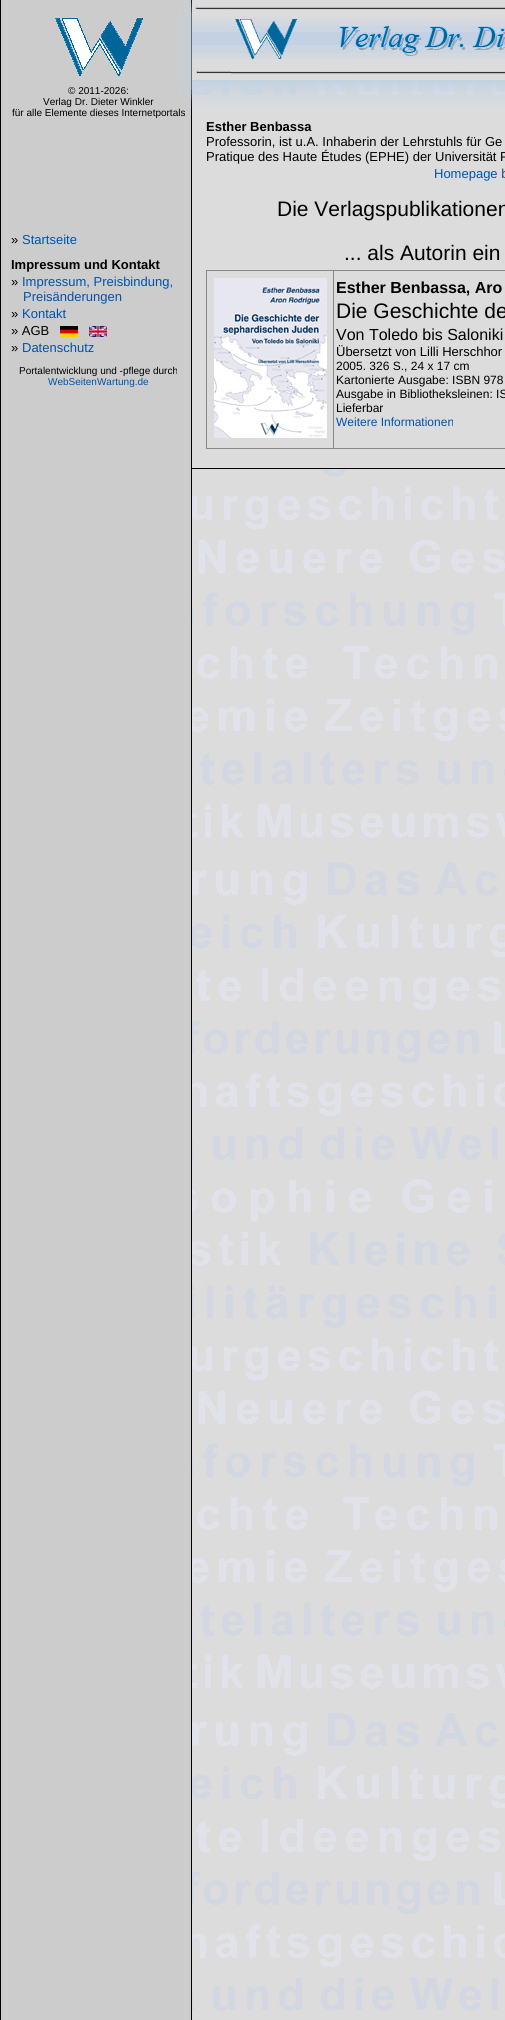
#include <cairo.h>
#include <math.h>
#include <stddef.h>


static void round_rect(cairo_t *cr, double x, double y, double w, double h, double r) {
    cairo_new_sub_path(cr);
    cairo_arc(cr, x + w - r, y + h - r, r, 0, M_PI / 2);
    cairo_arc(cr, x + r, y + h - r, r, M_PI / 2, M_PI);
    cairo_arc(cr, x + r, y + r, r, M_PI, 1.5 * M_PI);
    cairo_arc(cr, x + w - r, y + r, r, 1.5 * M_PI, 2 * M_PI);
    cairo_close_path(cr);
}

static void shadow(cairo_t *cr, double x, double y, double w, double h, double r, double blur, double alpha) {
    cairo_push_group_with_content(cr, CAIRO_CONTENT_ALPHA);
    cairo_set_operator(cr, CAIRO_OPERATOR_SOURCE);
    for (int i = 15; i >= -15 && fmin(w, h) + blur * i / 3 > 0; i -= 2) {
        double e = blur * i / 6;
        cairo_set_source_rgba(cr, 0, 0, 0, alpha * erfc((i - 1) / 8.5) / 2);
        round_rect(cr, x - e, y - e, w + 2 * e, h + 2 * e, fmax(0, fmin(r + e + blur * .6, fmin(w, h) / 2 + e)));
        cairo_fill(cr);
    }
    cairo_pattern_t *soft = cairo_pop_group(cr);
    cairo_mask(cr, soft);
    cairo_pattern_destroy(soft);
}

static void picture(cairo_t *cr, const char *path, double x, double y, double w, double h) {
    cairo_surface_t *image = cairo_image_surface_create_from_png(path);
    cairo_save(cr);
    cairo_set_source_surface(cr, image, x, y);
    cairo_rectangle(cr, x, y, w, h);
    cairo_fill(cr);
    cairo_restore(cr);
    cairo_surface_destroy(image);
}

int main(void) {
    cairo_surface_t *surface = cairo_image_surface_create(CAIRO_FORMAT_RGB24, 505, 2020);
    cairo_t *cr = cairo_create(surface);
    cairo_font_options_t *options = cairo_font_options_create();
    cairo_font_options_set_hint_metrics(options, CAIRO_HINT_METRICS_OFF);
    cairo_font_options_set_hint_style(options, CAIRO_HINT_STYLE_NONE);
    cairo_set_font_options(cr, options);
    cairo_set_miter_limit(cr, 4);
    cairo_set_source_rgb(cr, 0.863, 0.863, 0.863);
    cairo_paint(cr);
    picture(cr, "img1.png", 192, 82, 313, 1929);
    cairo_set_source_rgb(cr, 0.8, 0.8, 0.8);
    cairo_rectangle(cr, 1, 0, 190, 2020);
    cairo_fill(cr);
    cairo_set_source_rgb(cr, 0, 0, 0);
    cairo_rectangle(cr, 191, 468, 314, 1);
    cairo_fill(cr);
    cairo_rectangle(cr, 191, 0, 1, 2020);
    cairo_fill(cr);
    cairo_set_source_rgb(cr, 0.863, 0.863, 0.863);
    cairo_rectangle(cr, 192, 95, 313, 373);
    cairo_fill(cr);
    cairo_set_source_rgb(cr, 0.757, 0.824, 0.886);
    shadow(cr, 192, 10, 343, 82, 0, 10, 1);
    cairo_set_source_rgb(cr, 0.863, 0.863, 0.863);
    cairo_rectangle(cr, 192, 0, 313, 80);
    cairo_fill(cr);
    cairo_set_source_rgb(cr, 0.757, 0.824, 0.886);
    cairo_rectangle(cr, 192, 80, 313, 2);
    cairo_fill(cr);
    picture(cr, "img2.png", 192, 5, 313, 70);
    cairo_set_source_rgb(cr, 0, 0, 0);
    cairo_rectangle(cr, 0, 0, 1, 2020);
    cairo_fill(cr);
    picture(cr, "img3.png", 55, 18, 88, 58);
    cairo_select_font_face(cr, "Liberation Sans", CAIRO_FONT_SLANT_NORMAL, CAIRO_FONT_WEIGHT_NORMAL);
    cairo_set_font_size(cr, 10);
    cairo_move_to(cr, 68, 94);
    cairo_show_text(cr, "© 2011-2026:");
    cairo_move_to(cr, 43, 105);
    cairo_show_text(cr, "Verlag Dr. Dieter Winkler");
    cairo_move_to(cr, 12, 116);
    cairo_show_text(cr, "für alle Elemente dieses Internetportals");
    cairo_set_font_size(cr, 13);
    cairo_move_to(cr, 11, 244);
    cairo_show_text(cr, "»");
    cairo_set_source_rgb(cr, 0, 0.322, 0.671);
    cairo_move_to(cr, 22, 244);
    cairo_show_text(cr, "Startseite");
    cairo_select_font_face(cr, "Liberation Sans", CAIRO_FONT_SLANT_NORMAL, CAIRO_FONT_WEIGHT_BOLD);
    cairo_set_source_rgb(cr, 0, 0, 0);
    cairo_move_to(cr, 11, 269);
    cairo_show_text(cr, "Impressum und Kontakt");
    cairo_select_font_face(cr, "Liberation Sans", CAIRO_FONT_SLANT_NORMAL, CAIRO_FONT_WEIGHT_NORMAL);
    cairo_move_to(cr, 11, 286);
    cairo_show_text(cr, "»");
    cairo_set_source_rgb(cr, 0, 0.322, 0.671);
    cairo_move_to(cr, 22, 286);
    cairo_show_text(cr, "Impressum, Preisbindung,");
    cairo_move_to(cr, 23, 301);
    cairo_show_text(cr, "Preisänderungen");
    cairo_set_source_rgb(cr, 0, 0, 0);
    cairo_move_to(cr, 11, 318);
    cairo_show_text(cr, "»");
    cairo_set_source_rgb(cr, 0, 0.322, 0.671);
    cairo_move_to(cr, 22, 318);
    cairo_show_text(cr, "Kontakt");
    cairo_set_source_rgb(cr, 0, 0, 0);
    cairo_move_to(cr, 11, 335);
    cairo_show_text(cr, "» AGB");
    picture(cr, "img4.png", 60, 326, 18, 11);
    picture(cr, "img5.png", 89, 326, 18, 11);
    cairo_move_to(cr, 11, 352);
    cairo_show_text(cr, "»");
    cairo_set_source_rgb(cr, 0, 0.322, 0.671);
    cairo_move_to(cr, 22, 352);
    cairo_show_text(cr, "Datenschutz");
    cairo_set_font_size(cr, 10);
    cairo_set_source_rgb(cr, 0, 0, 0);
    cairo_move_to(cr, 19, 374);
    cairo_show_text(cr, "Portalentwicklung und -pflege durch");
    cairo_set_source_rgb(cr, 0, 0.322, 0.671);
    cairo_move_to(cr, 48, 385);
    cairo_show_text(cr, "WebSeitenWartung.de");
    cairo_select_font_face(cr, "Liberation Sans", CAIRO_FONT_SLANT_NORMAL, CAIRO_FONT_WEIGHT_BOLD);
    cairo_set_font_size(cr, 13);
    cairo_set_source_rgb(cr, 0, 0, 0);
    cairo_move_to(cr, 206, 131);
    cairo_show_text(cr, "Esther Benbassa");
    cairo_select_font_face(cr, "Liberation Sans", CAIRO_FONT_SLANT_NORMAL, CAIRO_FONT_WEIGHT_NORMAL);
    cairo_move_to(cr, 206, 146);
    cairo_show_text(cr, "Professorin, ist u.A. Inhaberin der Lehrstuhls für Ge");
    cairo_move_to(cr, 206, 161);
    cairo_show_text(cr, "Pratique des Haute Études (EPHE) der Universität P");
    cairo_set_source_rgb(cr, 0, 0.322, 0.671);
    cairo_move_to(cr, 434, 178);
    cairo_show_text(cr, "Homepage b");
    cairo_set_font_size(cr, 21);
    cairo_set_source_rgb(cr, 0, 0, 0);
    cairo_move_to(cr, 277, 216);
    cairo_show_text(cr, "Die Verlagspublikationen");
    cairo_move_to(cr, 344, 260);
    cairo_show_text(cr, "... als Autorin ein");
    cairo_set_source_rgb(cr, 0.533, 0.533, 0.533);
    cairo_rectangle(cr, 206, 270, 299, 1);
    cairo_fill(cr);
    cairo_rectangle(cr, 206, 448, 299, 1);
    cairo_fill(cr);
    cairo_rectangle(cr, 206, 270, 1, 179);
    cairo_fill(cr);
    picture(cr, "img6.png", 214, 278, 113, 160);
    cairo_rectangle(cr, 333, 270, 1, 179);
    cairo_fill(cr);
    cairo_select_font_face(cr, "Liberation Sans", CAIRO_FONT_SLANT_NORMAL, CAIRO_FONT_WEIGHT_BOLD);
    cairo_set_font_size(cr, 16);
    cairo_set_source_rgb(cr, 0, 0, 0);
    cairo_move_to(cr, 336, 293);
    cairo_show_text(cr, "Esther Benbassa, Aro");
    cairo_select_font_face(cr, "Liberation Sans", CAIRO_FONT_SLANT_NORMAL, CAIRO_FONT_WEIGHT_NORMAL);
    cairo_set_font_size(cr, 21);
    cairo_move_to(cr, 336, 318);
    cairo_show_text(cr, "Die Geschichte de");
    cairo_set_font_size(cr, 16);
    cairo_move_to(cr, 336, 340);
    cairo_show_text(cr, "Von Toledo bis Saloniki");
    cairo_set_font_size(cr, 13);
    cairo_move_to(cr, 336, 356);
    cairo_show_text(cr, "Übersetzt von Lilli Herschhor");
    cairo_set_font_size(cr, 12);
    cairo_move_to(cr, 336, 370);
    cairo_show_text(cr, "2005. 326 S., 24 x 17 cm");
    cairo_move_to(cr, 336, 384);
    cairo_show_text(cr, "Kartonierte Ausgabe: ISBN 978");
    cairo_move_to(cr, 336, 398);
    cairo_show_text(cr, "Ausgabe in Bibliotheksleinen: IS");
    cairo_move_to(cr, 336, 412);
    cairo_show_text(cr, "Lieferbar");
    cairo_set_source_rgb(cr, 0, 0.322, 0.671);
    cairo_move_to(cr, 336, 426);
    cairo_show_text(cr, "Weitere Informationen");
    cairo_surface_write_to_png(surface, "page.png");
    cairo_font_options_destroy(options);
    cairo_destroy(cr);
    cairo_surface_destroy(surface);
    return 0;
}
